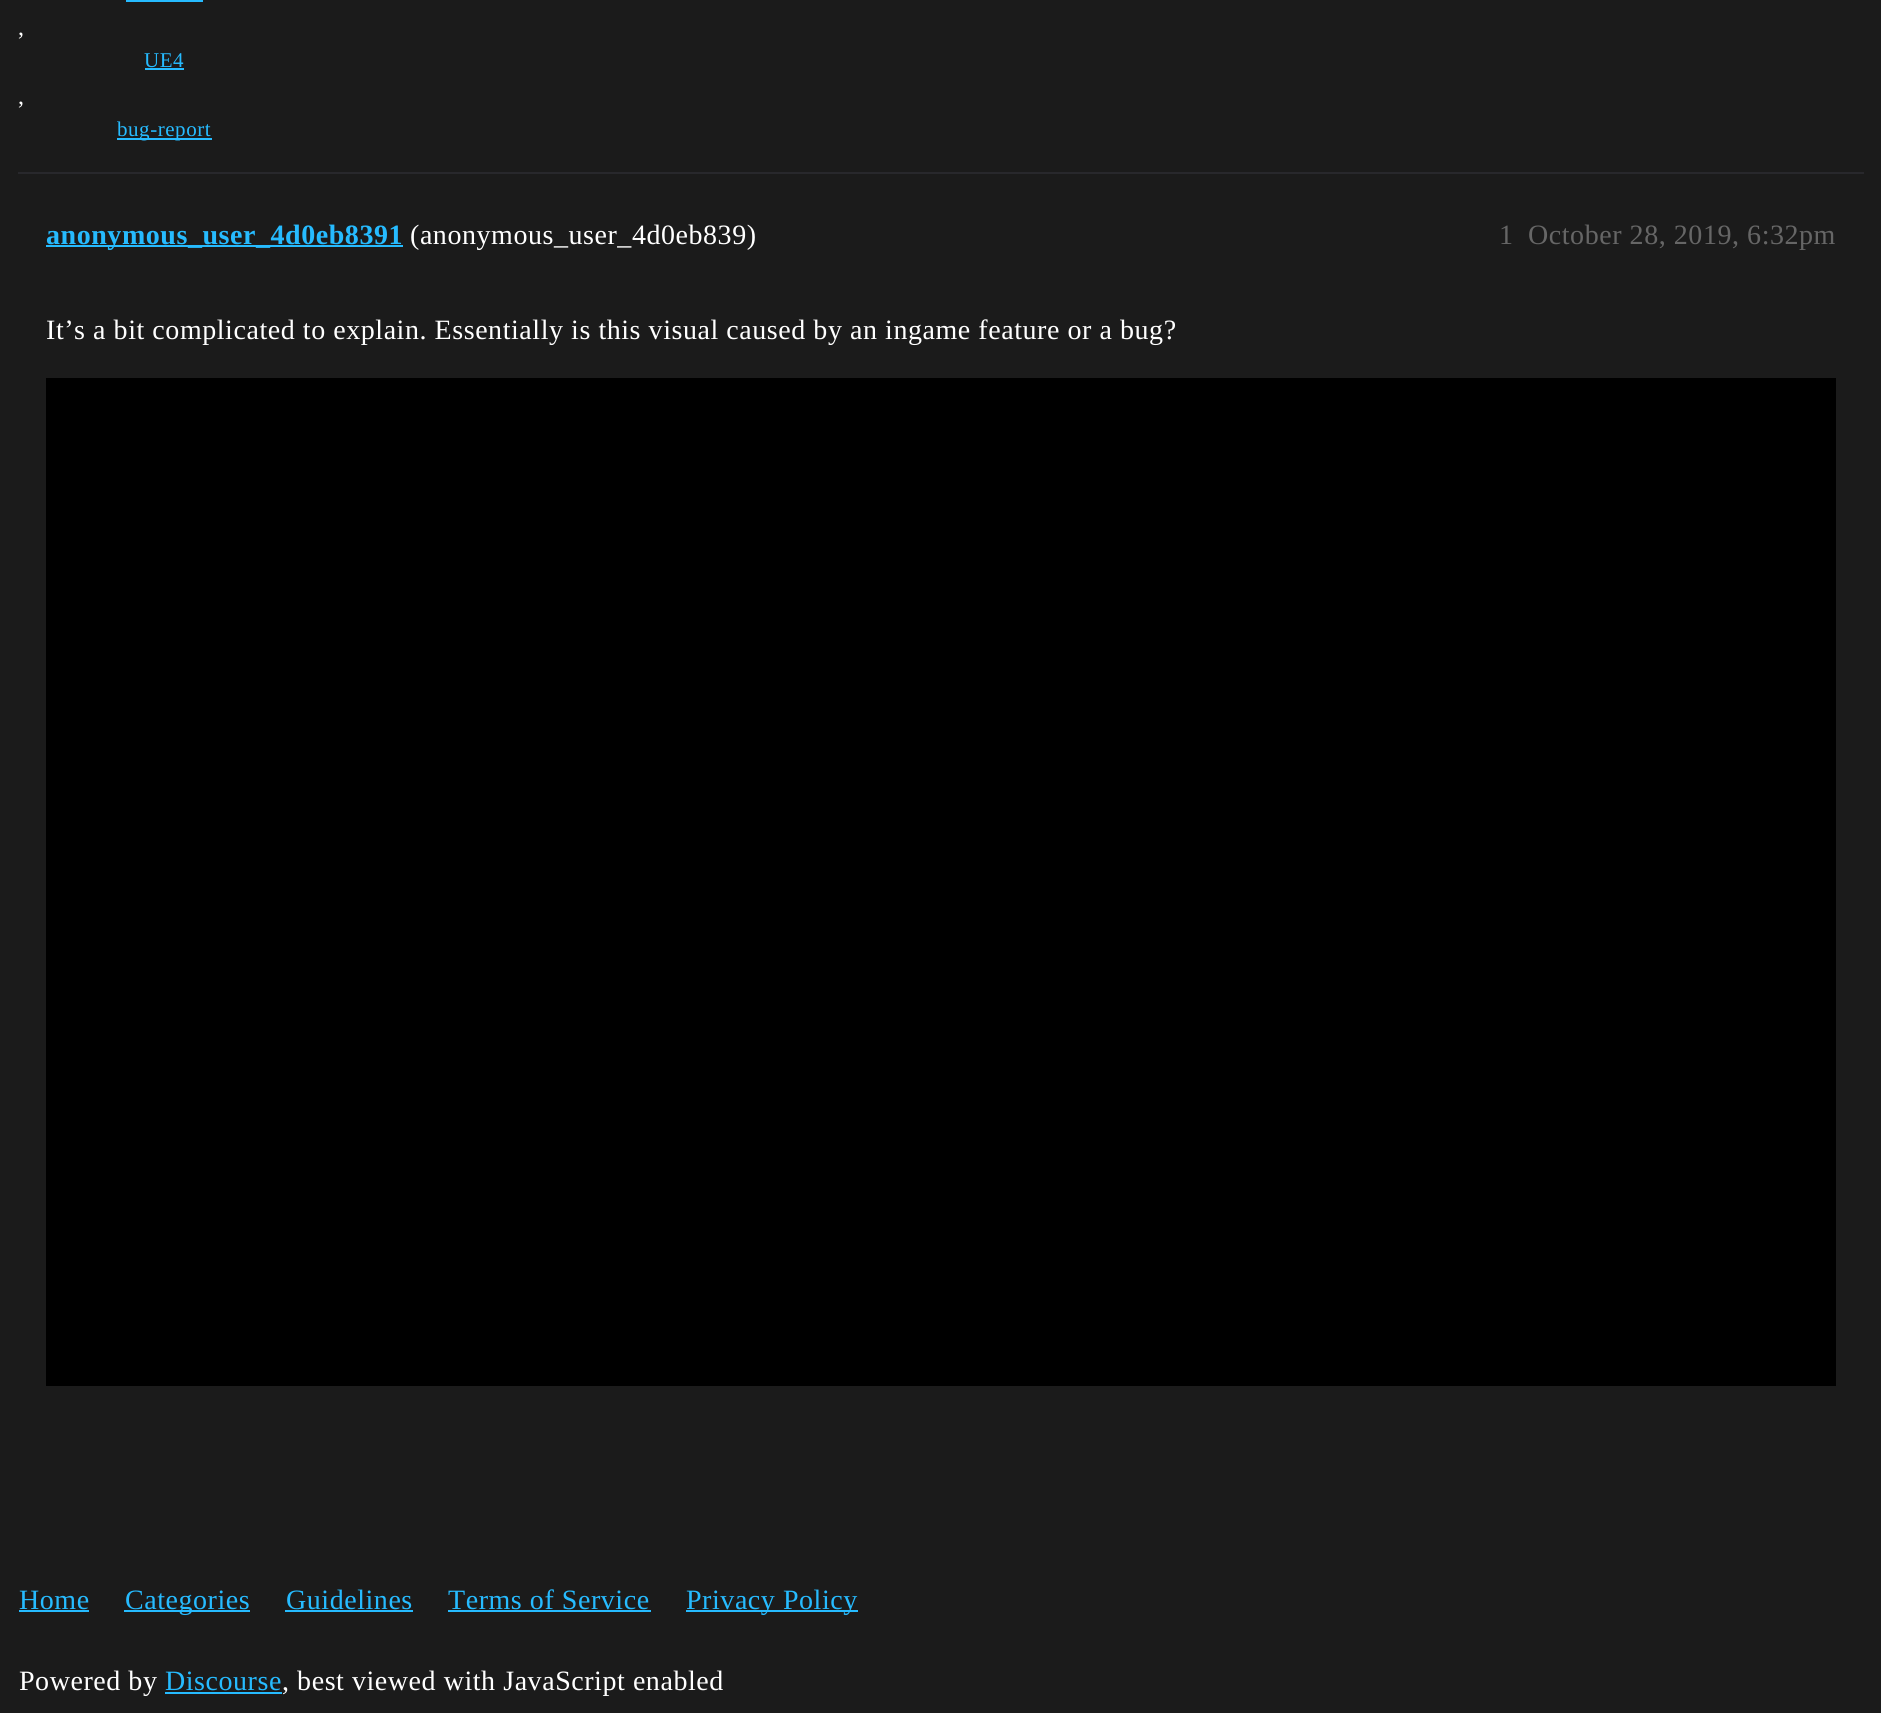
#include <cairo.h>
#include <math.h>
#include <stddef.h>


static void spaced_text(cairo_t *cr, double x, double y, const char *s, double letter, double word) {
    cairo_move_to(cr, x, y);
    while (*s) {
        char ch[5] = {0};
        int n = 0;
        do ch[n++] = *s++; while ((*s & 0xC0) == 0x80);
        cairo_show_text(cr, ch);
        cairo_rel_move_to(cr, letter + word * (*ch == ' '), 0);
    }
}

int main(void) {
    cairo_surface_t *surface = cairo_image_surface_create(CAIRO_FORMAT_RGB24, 1881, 1713);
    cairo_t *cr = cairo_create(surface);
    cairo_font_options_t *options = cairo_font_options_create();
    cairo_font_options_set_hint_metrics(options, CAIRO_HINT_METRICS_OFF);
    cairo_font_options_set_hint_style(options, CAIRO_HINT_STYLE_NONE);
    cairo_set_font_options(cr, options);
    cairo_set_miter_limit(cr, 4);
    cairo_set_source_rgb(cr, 0.106, 0.106, 0.106);
    cairo_paint(cr);
    cairo_set_source_rgb(cr, 0.149, 0.733, 1);
    cairo_rectangle(cr, 126, 0, 77, 2);
    cairo_fill(cr);
    cairo_select_font_face(cr, "Liberation Serif", CAIRO_FONT_SLANT_NORMAL, CAIRO_FONT_WEIGHT_NORMAL);
    cairo_set_font_size(cr, 24);
    cairo_set_source_rgb(cr, 1, 1, 1);
    spaced_text(cr, 18, 35, ",", 0.55, 0);
    cairo_set_font_size(cr, 21);
    cairo_set_source_rgb(cr, 0.149, 0.733, 1);
    spaced_text(cr, 144, 67, "UE4", 0.55, 0);
    cairo_rectangle(cr, 145, 68, 39, 2);
    cairo_fill(cr);
    cairo_set_font_size(cr, 24);
    cairo_set_source_rgb(cr, 1, 1, 1);
    spaced_text(cr, 18, 104, ",", 0.55, 0);
    cairo_set_source_rgb(cr, 0.149, 0.733, 1);
    cairo_rectangle(cr, 117, 138, 95, 2);
    cairo_fill(cr);
    cairo_set_font_size(cr, 21);
    spaced_text(cr, 117, 136, "bug-report", 0.55, 0);
    cairo_set_source_rgb(cr, 0.157, 0.157, 0.173);
    cairo_rectangle(cr, 18, 172, 1846, 2);
    cairo_fill(cr);
    cairo_set_source_rgb(cr, 0.149, 0.733, 1);
    cairo_rectangle(cr, 46, 245, 357, 2);
    cairo_fill(cr);
    cairo_select_font_face(cr, "Liberation Serif", CAIRO_FONT_SLANT_NORMAL, CAIRO_FONT_WEIGHT_BOLD);
    cairo_set_font_size(cr, 28);
    spaced_text(cr, 46, 244, "anonymous_user_4d0eb8391", 0.55, 0);
    cairo_select_font_face(cr, "Liberation Serif", CAIRO_FONT_SLANT_NORMAL, CAIRO_FONT_WEIGHT_NORMAL);
    cairo_set_source_rgb(cr, 1, 1, 1);
    spaced_text(cr, 410, 244, "(anonymous_user_4d0eb839)", 0.55, 0);
    cairo_set_source_rgb(cr, 0.4, 0.4, 0.4);
    spaced_text(cr, 1499, 244, "1", 0.55, 0);
    spaced_text(cr, 1528, 244, "October 28, 2019, 6:32pm", 0.55, 0);
    cairo_set_source_rgb(cr, 1, 1, 1);
    spaced_text(cr, 46, 339, "It’s a bit complicated to explain. Essentially is this visual caused by an ingame feature or a bug?", 0.55, 0);
    cairo_set_source_rgb(cr, 0, 0, 0);
    cairo_rectangle(cr, 46, 378, 1790, 1008);
    cairo_fill(cr);
    cairo_set_source_rgb(cr, 0.149, 0.733, 1);
    spaced_text(cr, 19, 1609, "Home", 0.55, 0);
    cairo_rectangle(cr, 19, 1610, 70, 2);
    cairo_fill(cr);
    cairo_rectangle(cr, 124, 1610, 126, 2);
    cairo_fill(cr);
    spaced_text(cr, 125, 1609, "Categories", 0.55, 0);
    spaced_text(cr, 286, 1609, "Guidelines", 0.55, 0);
    cairo_rectangle(cr, 285, 1610, 128, 2);
    cairo_fill(cr);
    spaced_text(cr, 448, 1609, "Terms of Service", 0.55, 0);
    cairo_rectangle(cr, 448, 1610, 203, 2);
    cairo_fill(cr);
    cairo_rectangle(cr, 686, 1610, 172, 2);
    cairo_fill(cr);
    spaced_text(cr, 686, 1609, "Privacy Policy", 0.55, 0);
    cairo_set_source_rgb(cr, 1, 1, 1);
    spaced_text(cr, 19, 1690, "Powered by", 0.55, 0);
    cairo_set_source_rgb(cr, 0.149, 0.733, 1);
    spaced_text(cr, 165, 1690, "Discourse", 0.55, 0);
    cairo_rectangle(cr, 165, 1692, 117, 2);
    cairo_fill(cr);
    cairo_set_source_rgb(cr, 1, 1, 1);
    spaced_text(cr, 282, 1690, ", best viewed with JavaScript enabled", 0.55, 0);
    cairo_surface_write_to_png(surface, "page.png");
    cairo_font_options_destroy(options);
    cairo_destroy(cr);
    cairo_surface_destroy(surface);
    return 0;
}
